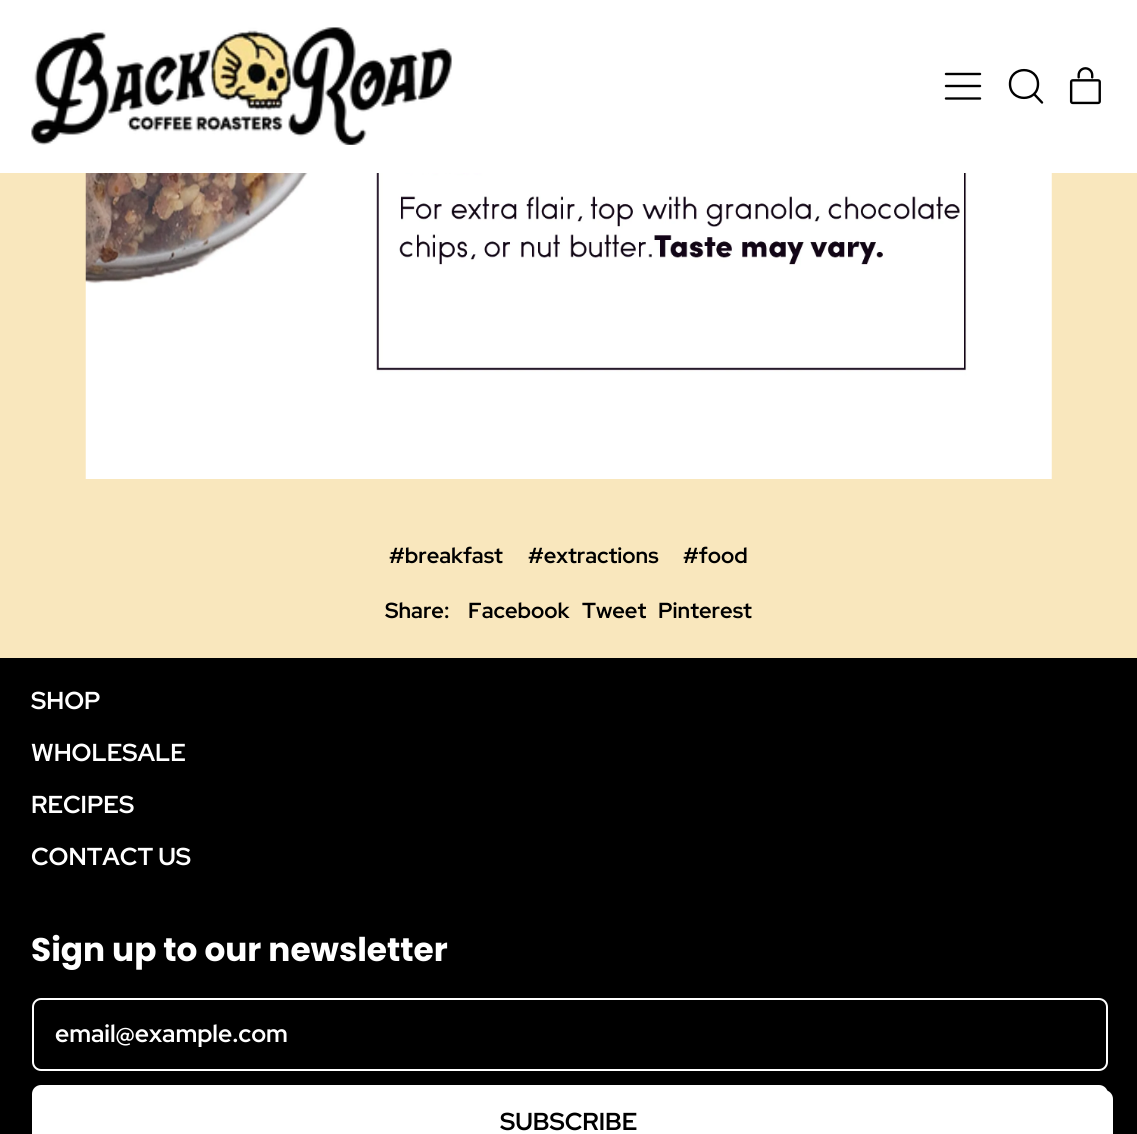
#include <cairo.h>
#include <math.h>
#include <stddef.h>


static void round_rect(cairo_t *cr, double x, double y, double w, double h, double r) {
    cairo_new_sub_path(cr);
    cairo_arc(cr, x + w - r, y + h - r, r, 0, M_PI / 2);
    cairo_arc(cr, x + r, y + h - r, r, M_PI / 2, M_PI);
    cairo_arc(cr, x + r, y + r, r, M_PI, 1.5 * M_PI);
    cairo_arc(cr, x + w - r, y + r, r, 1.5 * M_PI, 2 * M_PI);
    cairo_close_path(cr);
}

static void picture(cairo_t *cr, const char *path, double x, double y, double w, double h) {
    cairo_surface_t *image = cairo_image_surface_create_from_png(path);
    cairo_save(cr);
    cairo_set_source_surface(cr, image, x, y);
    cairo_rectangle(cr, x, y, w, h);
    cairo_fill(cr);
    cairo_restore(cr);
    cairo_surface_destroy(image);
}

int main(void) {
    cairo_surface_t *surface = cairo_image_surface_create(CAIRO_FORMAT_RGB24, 1137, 1134);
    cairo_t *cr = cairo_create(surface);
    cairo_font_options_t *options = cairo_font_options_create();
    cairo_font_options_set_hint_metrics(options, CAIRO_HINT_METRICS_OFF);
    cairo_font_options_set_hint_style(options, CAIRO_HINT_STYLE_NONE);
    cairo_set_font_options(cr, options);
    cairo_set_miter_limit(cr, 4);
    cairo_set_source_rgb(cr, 0.973, 0.906, 0.741);
    cairo_paint(cr);
    cairo_set_source_rgb(cr, 1, 1, 1);
    cairo_rectangle(cr, 0, 0, 1137, 173);
    cairo_fill(cr);
    picture(cr, "img1.png", 31, 27, 421, 118);
    cairo_new_path(cr);
    cairo_move_to(cr, 980, 98.5);
    cairo_line_to(cr, 946, 98.5);
    cairo_move_to(cr, 980, 86);
    cairo_line_to(cr, 946, 86);
    cairo_move_to(cr, 980, 74);
    cairo_line_to(cr, 946, 74);
    cairo_set_source_rgb(cr, 0, 0, 0);
    cairo_set_line_width(cr, 2.4);
    cairo_set_line_cap(cr, CAIRO_LINE_CAP_ROUND);
    cairo_set_line_join(cr, CAIRO_LINE_JOIN_ROUND);
    cairo_stroke(cr);
    cairo_new_path(cr);
    cairo_move_to(cr, 1010, 84);
    cairo_curve_to(cr, 1010, 102.5, 1038, 102.5, 1038, 84);
    cairo_curve_to(cr, 1038, 65.5, 1010, 65.5, 1010, 84);
    cairo_close_path(cr);
    cairo_move_to(cr, 1042, 102.5);
    cairo_line_to(cr, 1034, 94);
    cairo_stroke(cr);
    picture(cr, "img2.png", 1069, 67, 32, 38);
    picture(cr, "img3.png", 85, 173, 967, 306);
    cairo_select_font_face(cr, "Red Hat Display", CAIRO_FONT_SLANT_NORMAL, CAIRO_FONT_WEIGHT_BOLD);
    cairo_set_font_size(cr, 21.75);
    cairo_move_to(cr, 389, 563);
    cairo_show_text(cr, "#breakfast");
    cairo_move_to(cr, 528, 563);
    cairo_show_text(cr, "#extractions");
    cairo_move_to(cr, 683, 563);
    cairo_show_text(cr, "#food");
    cairo_move_to(cr, 385, 618);
    cairo_show_text(cr, "Share:");
    cairo_move_to(cr, 468, 618);
    cairo_show_text(cr, "Facebook");
    cairo_move_to(cr, 582, 618);
    cairo_show_text(cr, "Tweet");
    cairo_move_to(cr, 658, 618);
    cairo_show_text(cr, "Pinterest");
    cairo_rectangle(cr, 0, 658, 1137, 476);
    cairo_fill(cr);
    cairo_set_font_size(cr, 24.5);
    cairo_set_source_rgb(cr, 1, 1, 1);
    cairo_move_to(cr, 31, 709);
    cairo_show_text(cr, "SHOP");
    cairo_move_to(cr, 31, 761);
    cairo_show_text(cr, "WHOLESALE");
    cairo_move_to(cr, 31, 813);
    cairo_show_text(cr, "RECIPES");
    cairo_move_to(cr, 31, 865);
    cairo_show_text(cr, "CONTACT US");
    cairo_select_font_face(cr, "Poppins", CAIRO_FONT_SLANT_NORMAL, CAIRO_FONT_WEIGHT_BOLD);
    cairo_set_font_size(cr, 32.75);
    cairo_move_to(cr, 31, 961);
    cairo_show_text(cr, "Sign up to our newsletter");
    round_rect(cr, 33, 999, 1074, 71, 8);
    cairo_set_line_width(cr, 2);
    cairo_set_line_cap(cr, CAIRO_LINE_CAP_BUTT);
    cairo_set_line_join(cr, CAIRO_LINE_JOIN_MITER);
    cairo_stroke(cr);
    cairo_select_font_face(cr, "Red Hat Display", CAIRO_FONT_SLANT_NORMAL, CAIRO_FONT_WEIGHT_BOLD);
    cairo_set_font_size(cr, 24.5);
    cairo_move_to(cr, 55, 1042);
    cairo_show_text(cr, "email@example.com");
    round_rect(cr, 37, 1090, 1076, 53, 9);
    cairo_fill(cr);
    round_rect(cr, 33, 1086, 1074, 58, 8);
    cairo_fill_preserve(cr);
    cairo_stroke(cr);
    cairo_set_source_rgb(cr, 0, 0, 0);
    cairo_move_to(cr, 500, 1130);
    cairo_show_text(cr, "SUBSCRIBE");
    cairo_surface_write_to_png(surface, "page.png");
    cairo_font_options_destroy(options);
    cairo_destroy(cr);
    cairo_surface_destroy(surface);
    return 0;
}
